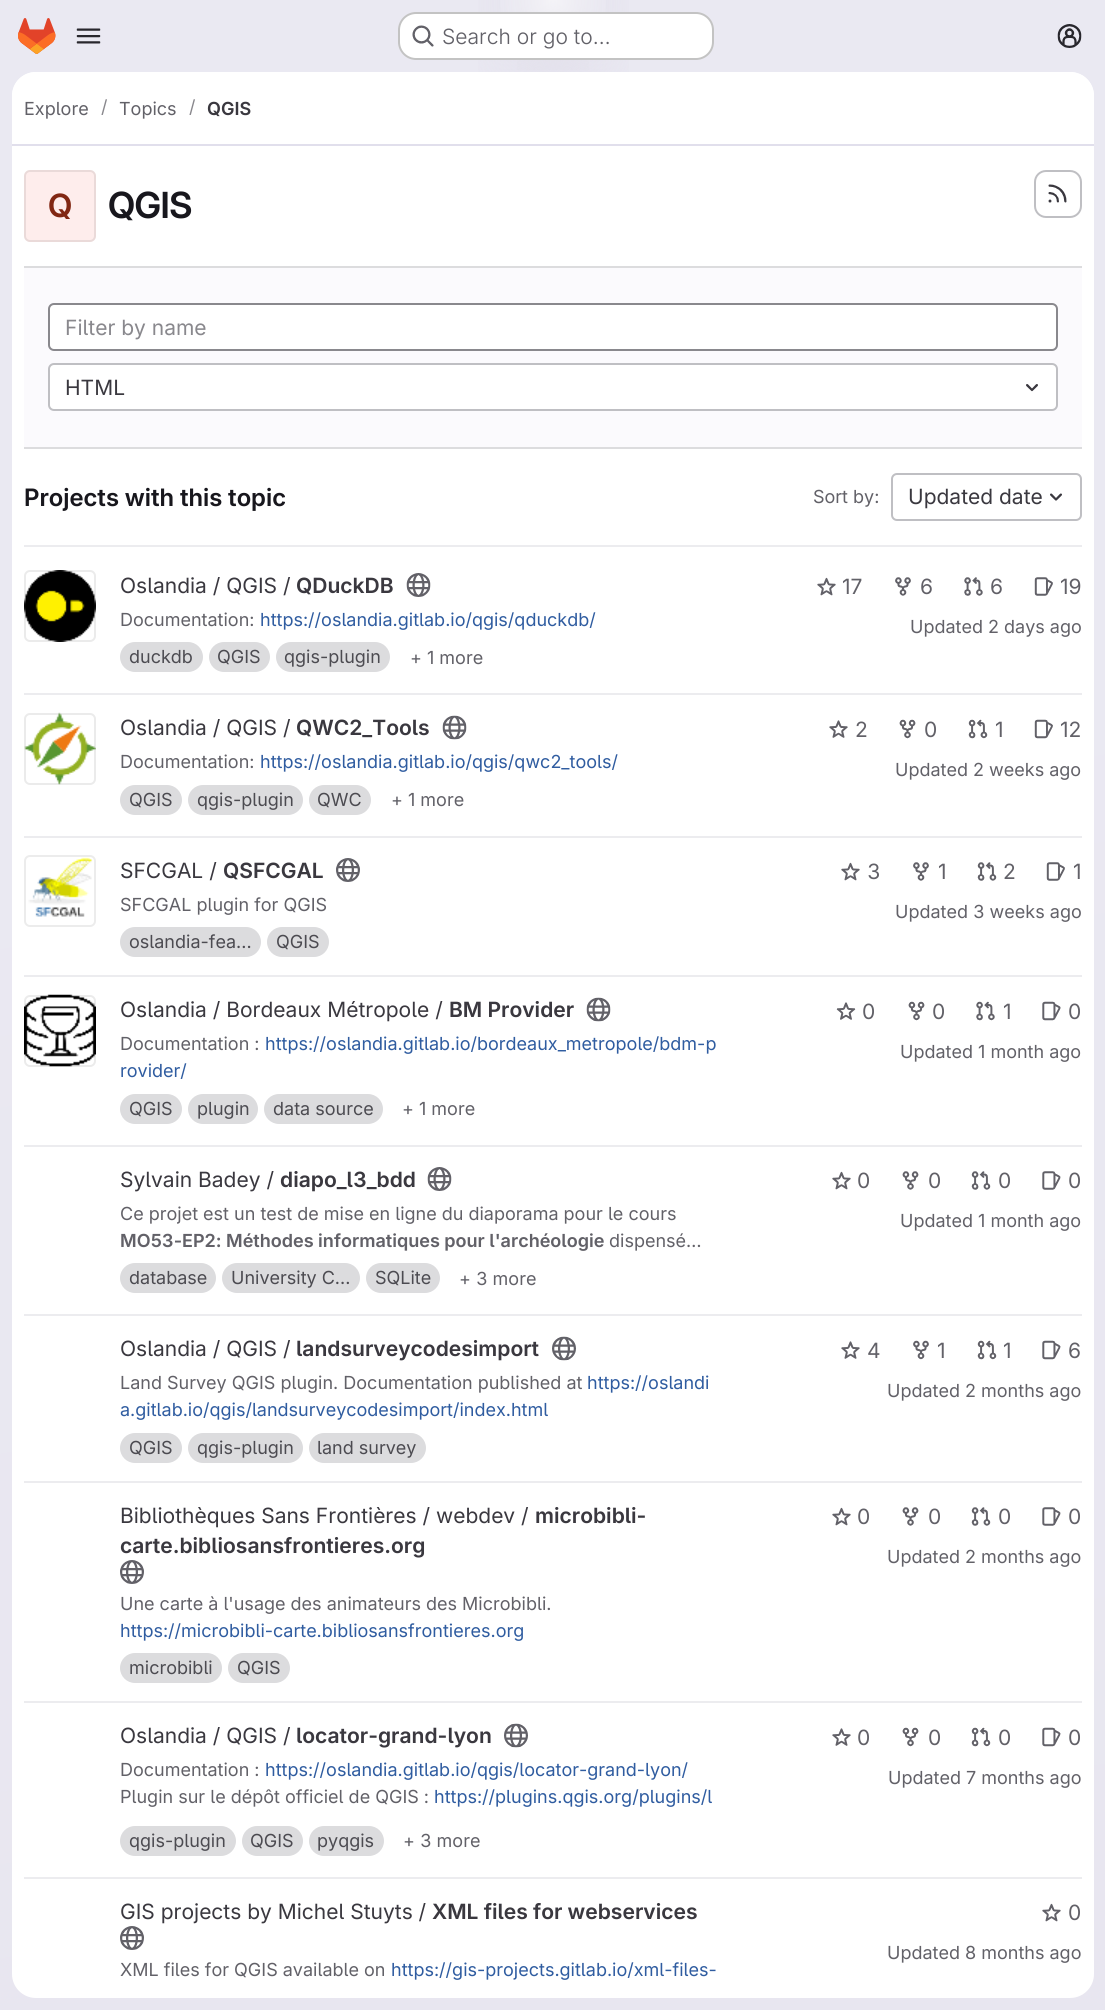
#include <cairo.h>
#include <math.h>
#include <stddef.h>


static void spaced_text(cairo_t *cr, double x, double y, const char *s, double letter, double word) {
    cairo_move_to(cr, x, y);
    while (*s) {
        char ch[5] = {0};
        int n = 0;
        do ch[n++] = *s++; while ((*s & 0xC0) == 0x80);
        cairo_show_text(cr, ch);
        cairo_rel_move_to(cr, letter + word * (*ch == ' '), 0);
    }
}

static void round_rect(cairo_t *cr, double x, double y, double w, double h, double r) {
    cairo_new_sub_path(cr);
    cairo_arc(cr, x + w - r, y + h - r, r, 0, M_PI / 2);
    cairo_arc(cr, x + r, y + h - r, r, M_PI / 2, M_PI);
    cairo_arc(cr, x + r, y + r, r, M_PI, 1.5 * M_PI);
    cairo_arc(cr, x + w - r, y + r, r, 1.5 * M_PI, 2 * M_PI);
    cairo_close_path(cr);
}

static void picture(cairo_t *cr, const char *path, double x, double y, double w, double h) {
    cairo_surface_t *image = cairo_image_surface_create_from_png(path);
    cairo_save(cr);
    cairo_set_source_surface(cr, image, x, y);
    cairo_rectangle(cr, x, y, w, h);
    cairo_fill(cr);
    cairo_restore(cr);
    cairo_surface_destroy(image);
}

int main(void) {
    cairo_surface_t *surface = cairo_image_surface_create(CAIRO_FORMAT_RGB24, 1105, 2010);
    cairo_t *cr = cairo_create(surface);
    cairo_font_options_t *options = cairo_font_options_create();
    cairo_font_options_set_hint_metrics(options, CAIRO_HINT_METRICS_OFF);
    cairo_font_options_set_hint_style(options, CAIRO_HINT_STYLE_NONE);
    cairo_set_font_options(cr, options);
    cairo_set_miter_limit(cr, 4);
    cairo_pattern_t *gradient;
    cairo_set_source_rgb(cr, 1, 1, 1);
    cairo_paint(cr);
    gradient = cairo_pattern_create_linear(741, 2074, 364, -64);
    cairo_pattern_add_color_stop_rgba(gradient, 0, 0.91, 0.902, 0.941, 1);
    cairo_pattern_add_color_stop_rgba(gradient, 0.7, 0.918, 0.914, 0.949, 1);
    cairo_set_source(cr, gradient);
    cairo_pattern_destroy(gradient);
    cairo_rectangle(cr, 0, 0, 1105, 2010);
    cairo_fill(cr);
    gradient = cairo_pattern_create_radial(0, 0, 0, 0, 0, 1);
    cairo_pattern_set_matrix(gradient, &(cairo_matrix_t){1.0 / 553, 0, 0, 1.0 / 2010, -1.0 * 553 / 553, -1.0 * 0 / 2010});
    cairo_pattern_add_color_stop_rgba(gradient, 0, 0.894, 0.886, 0.929, 1);
    cairo_pattern_add_color_stop_rgba(gradient, 0.19, 0.894, 0.886, 0.929, 0);
    cairo_set_source(cr, gradient);
    cairo_pattern_destroy(gradient);
    cairo_rectangle(cr, 478, 0, 151, 72);
    cairo_fill(cr);
    gradient = cairo_pattern_create_radial(0, 0, 0, 0, 0, 1);
    cairo_pattern_set_matrix(gradient, &(cairo_matrix_t){1.0 / 553, 0, 0, 1.0 / 2010, -1.0 * 553 / 553, -1.0 * 0 / 2010});
    cairo_pattern_add_color_stop_rgba(gradient, 0, 0.894, 0.886, 0.925, 1);
    cairo_pattern_add_color_stop_rgba(gradient, 0.14, 0.894, 0.886, 0.925, 0);
    cairo_set_source(cr, gradient);
    cairo_pattern_destroy(gradient);
    cairo_rectangle(cr, 517, 0, 72, 70);
    cairo_fill(cr);
    gradient = cairo_pattern_create_radial(553, 0, 0, 553, 0, 2085);
    cairo_pattern_add_color_stop_rgba(gradient, 0, 1, 1, 1, 0.6);
    cairo_pattern_add_color_stop_rgba(gradient, 0.03, 1, 1, 1, 0);
    cairo_set_source(cr, gradient);
    cairo_pattern_destroy(gradient);
    cairo_rectangle(cr, 500, 0, 106, 12);
    cairo_fill(cr);
    picture(cr, "img1.png", 18, 18, 38, 36);
    picture(cr, "img2.png", 76, 28, 25, 16);
    cairo_set_source_rgb(cr, 1, 1, 1);
    round_rect(cr, 398, 12, 316, 48, 18);
    cairo_fill(cr);
    round_rect(cr, 399, 13, 314, 46, 17);
    cairo_set_source_rgba(cr, 0.02, 0.02, 0.024, 0.24);
    cairo_stroke(cr);
    picture(cr, "img3.png", 412, 25, 22, 22);
    cairo_select_font_face(cr, "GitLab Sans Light", CAIRO_FONT_SLANT_NORMAL, CAIRO_FONT_WEIGHT_NORMAL);
    cairo_set_font_size(cr, 21);
    cairo_set_source_rgb(cr, 0.384, 0.38, 0.408);
    cairo_move_to(cr, 442, 44);
    cairo_show_text(cr, "Search or go to…");
    picture(cr, "img4.png", 1057, 24, 25, 24);
    cairo_set_source_rgb(cr, 1, 1, 1);
    round_rect(cr, 12, 72, 1082, 1926, 24);
    cairo_fill(cr);
    cairo_new_path(cr);
    cairo_move_to(cr, 36, 72);
    cairo_line_to(cr, 1070, 72);
    cairo_curve_to(cr, 1083.5, 72, 1094, 82.5, 1094, 96);
    cairo_line_to(cr, 1094, 146);
    cairo_line_to(cr, 12, 146);
    cairo_line_to(cr, 12, 96);
    cairo_curve_to(cr, 12, 82.5, 22.5, 72, 36, 72);
    cairo_close_path(cr);
    cairo_fill(cr);
    cairo_set_source_rgb(cr, 0.882, 0.875, 0.925);
    cairo_rectangle(cr, 12, 144, 1082, 2);
    cairo_fill(cr);
    cairo_select_font_face(cr, "GitLab Sans", CAIRO_FONT_SLANT_NORMAL, CAIRO_FONT_WEIGHT_NORMAL);
    cairo_set_font_size(cr, 18);
    cairo_set_source_rgb(cr, 0.384, 0.38, 0.408);
    cairo_move_to(cr, 24, 115);
    cairo_show_text(cr, "Explore");
    cairo_set_source_rgb(cr, 0.537, 0.533, 0.553);
    cairo_move_to(cr, 101, 113);
    cairo_show_text(cr, "/");
    cairo_set_source_rgb(cr, 0.384, 0.38, 0.408);
    cairo_move_to(cr, 119, 115);
    cairo_show_text(cr, "Topics");
    cairo_set_source_rgb(cr, 0.537, 0.533, 0.553);
    cairo_move_to(cr, 189, 113);
    cairo_show_text(cr, "/");
    cairo_select_font_face(cr, "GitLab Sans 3 SemiBold", CAIRO_FONT_SLANT_NORMAL, CAIRO_FONT_WEIGHT_NORMAL);
    cairo_set_source_rgb(cr, 0.227, 0.22, 0.247);
    cairo_move_to(cr, 207, 115);
    cairo_show_text(cr, "QGIS");
    cairo_set_source_rgb(cr, 0.996, 0.929, 0.922);
    round_rect(cr, 24, 170, 72, 72, 6);
    cairo_fill(cr);
    round_rect(cr, 25, 171, 70, 70, 5);
    cairo_set_source_rgba(cr, 0.02, 0.02, 0.024, 0.08);
    cairo_stroke(cr);
    cairo_select_font_face(cr, "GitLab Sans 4 SemiBold", CAIRO_FONT_SLANT_NORMAL, CAIRO_FONT_WEIGHT_NORMAL);
    cairo_set_font_size(cr, 32);
    cairo_set_source_rgb(cr, 0.506, 0.153, 0.075);
    spaced_text(cr, 48, 217, "Q", -0.5, 0);
    cairo_select_font_face(cr, "GitLab Sans SemiBold", CAIRO_FONT_SLANT_NORMAL, CAIRO_FONT_WEIGHT_NORMAL);
    cairo_set_font_size(cr, 36);
    cairo_set_source_rgb(cr, 0.094, 0.09, 0.114);
    spaced_text(cr, 108, 218, "QGIS", -0.5, 0);
    round_rect(cr, 1035, 171, 46, 46, 11);
    cairo_set_source_rgb(cr, 0.749, 0.749, 0.765);
    cairo_stroke(cr);
    picture(cr, "img5.png", 1048, 184, 19, 19);
    cairo_set_source_rgb(cr, 0.984, 0.98, 0.992);
    cairo_rectangle(cr, 24, 268, 1058, 179);
    cairo_fill(cr);
    cairo_set_source_rgb(cr, 0.863, 0.863, 0.871);
    cairo_rectangle(cr, 24, 266, 1058, 2);
    cairo_fill(cr);
    cairo_rectangle(cr, 24, 447, 1058, 2);
    cairo_fill(cr);
    cairo_set_source_rgb(cr, 1, 1, 1);
    round_rect(cr, 49, 304, 1008, 46, 5);
    cairo_fill_preserve(cr);
    cairo_set_source_rgb(cr, 0.537, 0.533, 0.553);
    cairo_stroke(cr);
    cairo_select_font_face(cr, "GitLab Sans", CAIRO_FONT_SLANT_NORMAL, CAIRO_FONT_WEIGHT_NORMAL);
    cairo_set_font_size(cr, 21);
    cairo_move_to(cr, 65, 335);
    cairo_show_text(cr, "Filter by name");
    cairo_set_source_rgb(cr, 1, 1, 1);
    round_rect(cr, 49, 364, 1008, 46, 5);
    cairo_fill_preserve(cr);
    cairo_set_source_rgb(cr, 0.749, 0.749, 0.765);
    cairo_stroke(cr);
    cairo_set_source_rgb(cr, 0.227, 0.22, 0.247);
    cairo_move_to(cr, 65, 395);
    cairo_show_text(cr, "HTML");
    picture(cr, "img6.png", 1026, 384, 12, 8);
    cairo_set_source_rgb(cr, 0.925, 0.925, 0.937);
    cairo_rectangle(cr, 24, 545, 1058, 2);
    cairo_fill(cr);
    cairo_select_font_face(cr, "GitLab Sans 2 SemiBold", CAIRO_FONT_SLANT_NORMAL, CAIRO_FONT_WEIGHT_NORMAL);
    cairo_set_font_size(cr, 24);
    cairo_set_source_rgb(cr, 0.094, 0.09, 0.114);
    cairo_move_to(cr, 24, 506);
    cairo_show_text(cr, "Projects with this topic");
    cairo_select_font_face(cr, "GitLab Sans", CAIRO_FONT_SLANT_NORMAL, CAIRO_FONT_WEIGHT_NORMAL);
    cairo_set_font_size(cr, 18);
    cairo_set_source_rgb(cr, 0.384, 0.38, 0.408);
    cairo_move_to(cr, 813, 503);
    cairo_show_text(cr, "Sort by:");
    round_rect(cr, 892, 474, 189, 46, 5);
    cairo_set_source_rgb(cr, 0.749, 0.749, 0.765);
    cairo_stroke(cr);
    cairo_set_font_size(cr, 21);
    cairo_set_source_rgb(cr, 0.227, 0.22, 0.247);
    cairo_move_to(cr, 908, 504);
    cairo_show_text(cr, "Updated date");
    picture(cr, "img7.png", 1050, 493, 12, 8);
    cairo_set_source_rgb(cr, 0.925, 0.925, 0.937);
    cairo_rectangle(cr, 24, 693, 1058, 2);
    cairo_fill(cr);
    picture(cr, "img8.png", 24, 570, 72, 72);
    round_rect(cr, 25, 571, 70, 70, 5);
    cairo_set_source_rgba(cr, 0.02, 0.02, 0.024, 0.08);
    cairo_stroke(cr);
    cairo_set_source_rgb(cr, 0.227, 0.22, 0.247);
    cairo_move_to(cr, 120, 593);
    cairo_show_text(cr, "Oslandia / QGIS /");
    cairo_select_font_face(cr, "GitLab Sans 3 SemiBold", CAIRO_FONT_SLANT_NORMAL, CAIRO_FONT_WEIGHT_NORMAL);
    cairo_move_to(cr, 296, 593);
    cairo_show_text(cr, "QDuckDB");
    picture(cr, "img9.png", 406, 573, 25, 24);
    cairo_select_font_face(cr, "GitLab Sans", CAIRO_FONT_SLANT_NORMAL, CAIRO_FONT_WEIGHT_NORMAL);
    cairo_set_font_size(cr, 18);
    cairo_set_source_rgb(cr, 0.384, 0.38, 0.408);
    cairo_move_to(cr, 120, 626);
    cairo_show_text(cr, "Documentation:");
    cairo_set_source_rgb(cr, 0.184, 0.361, 0.627);
    cairo_move_to(cr, 260, 626);
    cairo_show_text(cr, "https://oslandia.gitlab.io/qgis/qduckdb/");
    cairo_set_source_rgb(cr, 0.863, 0.863, 0.871);
    round_rect(cr, 120, 642, 83, 30, 15);
    cairo_fill(cr);
    cairo_set_source_rgb(cr, 0.298, 0.294, 0.318);
    cairo_move_to(cr, 129, 663);
    cairo_show_text(cr, "duckdb");
    cairo_set_source_rgb(cr, 0.863, 0.863, 0.871);
    round_rect(cr, 209, 642, 61, 30, 15);
    cairo_fill(cr);
    cairo_set_source_rgb(cr, 0.298, 0.294, 0.318);
    cairo_move_to(cr, 217, 663);
    cairo_show_text(cr, "QGIS");
    cairo_set_source_rgb(cr, 0.863, 0.863, 0.871);
    round_rect(cr, 276, 642, 114, 30, 15);
    cairo_fill(cr);
    cairo_set_source_rgb(cr, 0.298, 0.294, 0.318);
    cairo_move_to(cr, 284, 663);
    cairo_show_text(cr, "qgis-plugin");
    cairo_set_source_rgb(cr, 0.384, 0.38, 0.408);
    cairo_move_to(cr, 410, 664);
    cairo_show_text(cr, "+ 1 more");
    picture(cr, "img10.png", 817, 577, 19, 19);
    cairo_set_font_size(cr, 21);
    cairo_move_to(cr, 842, 594);
    cairo_show_text(cr, "17");
    picture(cr, "img11.png", 895, 577, 16, 19);
    cairo_move_to(cr, 920, 594);
    cairo_show_text(cr, "6");
    picture(cr, "img12.png", 964, 577, 19, 19);
    cairo_move_to(cr, 990, 594);
    cairo_show_text(cr, "6");
    picture(cr, "img13.png", 1034, 577, 19, 19);
    cairo_move_to(cr, 1060, 594);
    cairo_show_text(cr, "19");
    cairo_set_font_size(cr, 18);
    cairo_move_to(cr, 910, 633);
    cairo_show_text(cr, "Updated 2 days ago");
    cairo_set_source_rgb(cr, 0.925, 0.925, 0.937);
    cairo_rectangle(cr, 24, 836, 1058, 2);
    cairo_fill(cr);
    picture(cr, "img14.png", 24, 712, 72, 73);
    round_rect(cr, 25, 714, 70, 70, 5);
    cairo_set_source_rgba(cr, 0.02, 0.02, 0.024, 0.08);
    cairo_stroke(cr);
    cairo_set_font_size(cr, 21);
    cairo_set_source_rgb(cr, 0.227, 0.22, 0.247);
    cairo_move_to(cr, 120, 735);
    cairo_show_text(cr, "Oslandia / QGIS /");
    cairo_select_font_face(cr, "GitLab Sans 3 SemiBold", CAIRO_FONT_SLANT_NORMAL, CAIRO_FONT_WEIGHT_NORMAL);
    cairo_move_to(cr, 296, 735);
    cairo_show_text(cr, "QWC2_Tools");
    picture(cr, "img15.png", 442, 715, 25, 25);
    cairo_select_font_face(cr, "GitLab Sans", CAIRO_FONT_SLANT_NORMAL, CAIRO_FONT_WEIGHT_NORMAL);
    cairo_set_font_size(cr, 18);
    cairo_set_source_rgb(cr, 0.384, 0.38, 0.408);
    cairo_move_to(cr, 120, 768);
    cairo_show_text(cr, "Documentation:");
    cairo_set_source_rgb(cr, 0.184, 0.361, 0.627);
    cairo_move_to(cr, 260, 768);
    cairo_show_text(cr, "https://oslandia.gitlab.io/qgis/qwc2_tools/");
    cairo_set_source_rgb(cr, 0.863, 0.863, 0.871);
    round_rect(cr, 120, 785, 62, 30, 15);
    cairo_fill(cr);
    cairo_set_source_rgb(cr, 0.298, 0.294, 0.318);
    cairo_move_to(cr, 129, 806);
    cairo_show_text(cr, "QGIS");
    cairo_set_source_rgb(cr, 0.863, 0.863, 0.871);
    round_rect(cr, 188, 785, 115, 30, 15);
    cairo_fill(cr);
    cairo_set_source_rgb(cr, 0.298, 0.294, 0.318);
    cairo_move_to(cr, 197, 806);
    cairo_show_text(cr, "qgis-plugin");
    cairo_set_source_rgb(cr, 0.863, 0.863, 0.871);
    round_rect(cr, 309, 785, 62, 30, 15);
    cairo_fill(cr);
    cairo_set_source_rgb(cr, 0.298, 0.294, 0.318);
    cairo_move_to(cr, 317, 806);
    cairo_show_text(cr, "QWC");
    cairo_set_source_rgb(cr, 0.384, 0.38, 0.408);
    cairo_move_to(cr, 391, 806);
    cairo_show_text(cr, "+ 1 more");
    picture(cr, "img16.png", 829, 720, 19, 18);
    cairo_set_font_size(cr, 21);
    cairo_move_to(cr, 855, 737);
    cairo_show_text(cr, "2");
    picture(cr, "img17.png", 899, 719, 17, 20);
    cairo_move_to(cr, 924, 737);
    cairo_show_text(cr, "0");
    picture(cr, "img18.png", 968, 719, 20, 20);
    cairo_move_to(cr, 995, 737);
    cairo_show_text(cr, "1");
    picture(cr, "img19.png", 1034, 719, 19, 20);
    cairo_move_to(cr, 1060, 737);
    cairo_show_text(cr, "12");
    cairo_set_font_size(cr, 18);
    cairo_move_to(cr, 895, 776);
    cairo_show_text(cr, "Updated 2 weeks ago");
    cairo_set_source_rgb(cr, 0.925, 0.925, 0.937);
    cairo_rectangle(cr, 24, 975, 1058, 2);
    cairo_fill(cr);
    picture(cr, "img20.png", 28, 857, 65, 60);
    round_rect(cr, 25, 856, 70, 70, 5);
    cairo_set_source_rgb(cr, 0.922, 0.922, 0.922);
    cairo_stroke(cr);
    cairo_set_font_size(cr, 21);
    cairo_set_source_rgb(cr, 0.227, 0.22, 0.247);
    cairo_move_to(cr, 120, 878);
    cairo_show_text(cr, "SFCGAL /");
    cairo_select_font_face(cr, "GitLab Sans 3 SemiBold", CAIRO_FONT_SLANT_NORMAL, CAIRO_FONT_WEIGHT_NORMAL);
    cairo_move_to(cr, 223, 878);
    cairo_show_text(cr, "QSFCGAL");
    picture(cr, "img21.png", 336, 858, 24, 24);
    cairo_select_font_face(cr, "GitLab Sans", CAIRO_FONT_SLANT_NORMAL, CAIRO_FONT_WEIGHT_NORMAL);
    cairo_set_font_size(cr, 18);
    cairo_set_source_rgb(cr, 0.384, 0.38, 0.408);
    cairo_move_to(cr, 120, 911);
    cairo_show_text(cr, "SFCGAL plugin for QGIS");
    cairo_set_source_rgb(cr, 0.863, 0.863, 0.871);
    round_rect(cr, 120, 927, 141, 30, 15);
    cairo_fill(cr);
    cairo_set_source_rgb(cr, 0.298, 0.294, 0.318);
    cairo_move_to(cr, 129, 948);
    cairo_show_text(cr, "oslandia-fea...");
    cairo_set_source_rgb(cr, 0.863, 0.863, 0.871);
    round_rect(cr, 267, 927, 62, 30, 15);
    cairo_fill(cr);
    cairo_set_source_rgb(cr, 0.298, 0.294, 0.318);
    cairo_move_to(cr, 276, 948);
    cairo_show_text(cr, "QGIS");
    picture(cr, "img10.png", 841, 862, 19, 19);
    cairo_set_font_size(cr, 21);
    cairo_set_source_rgb(cr, 0.384, 0.38, 0.408);
    cairo_move_to(cr, 867, 879);
    cairo_show_text(cr, "3");
    picture(cr, "img11.png", 913, 862, 16, 19);
    cairo_move_to(cr, 938, 879);
    cairo_show_text(cr, "1");
    picture(cr, "img22.png", 977, 862, 20, 19);
    cairo_move_to(cr, 1003, 879);
    cairo_show_text(cr, "2");
    picture(cr, "img13.png", 1046, 862, 19, 19);
    cairo_move_to(cr, 1073, 879);
    cairo_show_text(cr, "1");
    cairo_set_font_size(cr, 18);
    cairo_move_to(cr, 895, 918);
    cairo_show_text(cr, "Updated 3 weeks ago");
    cairo_set_source_rgb(cr, 0.925, 0.925, 0.937);
    cairo_rectangle(cr, 24, 1145, 1058, 2);
    cairo_fill(cr);
    picture(cr, "img23.png", 24, 994, 72, 73);
    round_rect(cr, 25, 996, 70, 70, 5);
    cairo_set_source_rgba(cr, 0.02, 0.02, 0.024, 0.08);
    cairo_stroke(cr);
    cairo_set_font_size(cr, 21);
    cairo_set_source_rgb(cr, 0.227, 0.22, 0.247);
    cairo_move_to(cr, 120, 1017);
    cairo_show_text(cr, "Oslandia / Bordeaux Métropole /");
    cairo_select_font_face(cr, "GitLab Sans 3 SemiBold", CAIRO_FONT_SLANT_NORMAL, CAIRO_FONT_WEIGHT_NORMAL);
    cairo_move_to(cr, 449, 1017);
    cairo_show_text(cr, "BM Provider");
    picture(cr, "img24.png", 586, 997, 25, 25);
    cairo_select_font_face(cr, "GitLab Sans", CAIRO_FONT_SLANT_NORMAL, CAIRO_FONT_WEIGHT_NORMAL);
    cairo_set_font_size(cr, 18);
    cairo_set_source_rgb(cr, 0.384, 0.38, 0.408);
    cairo_move_to(cr, 120, 1050);
    cairo_show_text(cr, "Documentation :");
    cairo_set_source_rgb(cr, 0.184, 0.361, 0.627);
    cairo_move_to(cr, 265, 1050);
    cairo_show_text(cr, "https://oslandia.gitlab.io/bordeaux_metropole/bdm-p");
    cairo_move_to(cr, 120, 1077);
    cairo_show_text(cr, "rovider/");
    cairo_set_source_rgb(cr, 0.863, 0.863, 0.871);
    round_rect(cr, 120, 1094, 62, 30, 15);
    cairo_fill(cr);
    cairo_set_source_rgb(cr, 0.298, 0.294, 0.318);
    cairo_move_to(cr, 129, 1115);
    cairo_show_text(cr, "QGIS");
    cairo_set_source_rgb(cr, 0.863, 0.863, 0.871);
    round_rect(cr, 188, 1094, 70, 30, 15);
    cairo_fill(cr);
    cairo_set_source_rgb(cr, 0.298, 0.294, 0.318);
    cairo_move_to(cr, 197, 1115);
    cairo_show_text(cr, "plugin");
    cairo_set_source_rgb(cr, 0.863, 0.863, 0.871);
    round_rect(cr, 264, 1094, 119, 30, 15);
    cairo_fill(cr);
    cairo_set_source_rgb(cr, 0.298, 0.294, 0.318);
    cairo_move_to(cr, 273, 1115);
    cairo_show_text(cr, "data source");
    cairo_set_source_rgb(cr, 0.384, 0.38, 0.408);
    cairo_move_to(cr, 402, 1115);
    cairo_show_text(cr, "+ 1 more");
    picture(cr, "img25.png", 836, 1002, 20, 18);
    cairo_set_font_size(cr, 21);
    cairo_move_to(cr, 862, 1019);
    cairo_show_text(cr, "0");
    picture(cr, "img17.png", 908, 1001, 17, 20);
    cairo_move_to(cr, 932, 1019);
    cairo_show_text(cr, "0");
    picture(cr, "img26.png", 976, 1001, 19, 20);
    cairo_move_to(cr, 1003, 1019);
    cairo_show_text(cr, "1");
    picture(cr, "img27.png", 1042, 1001, 19, 20);
    cairo_move_to(cr, 1068, 1019);
    cairo_show_text(cr, "0");
    cairo_set_font_size(cr, 18);
    cairo_move_to(cr, 900, 1058);
    cairo_show_text(cr, "Updated 1 month ago");
    cairo_set_source_rgb(cr, 0.925, 0.925, 0.937);
    cairo_rectangle(cr, 24, 1314, 1058, 2);
    cairo_fill(cr);
    cairo_set_font_size(cr, 21);
    cairo_set_source_rgb(cr, 0.227, 0.22, 0.247);
    cairo_move_to(cr, 120, 1187);
    cairo_show_text(cr, "Sylvain Badey /");
    cairo_select_font_face(cr, "GitLab Sans 3 SemiBold", CAIRO_FONT_SLANT_NORMAL, CAIRO_FONT_WEIGHT_NORMAL);
    cairo_move_to(cr, 280, 1187);
    cairo_show_text(cr, "diapo_l3_bdd");
    picture(cr, "img28.png", 427, 1167, 25, 24);
    cairo_select_font_face(cr, "GitLab Sans", CAIRO_FONT_SLANT_NORMAL, CAIRO_FONT_WEIGHT_NORMAL);
    cairo_set_font_size(cr, 18);
    cairo_set_source_rgb(cr, 0.384, 0.38, 0.408);
    cairo_move_to(cr, 120, 1220);
    cairo_show_text(cr, "Ce projet est un test de mise en ligne du diaporama pour le cours");
    cairo_select_font_face(cr, "GitLab Sans 3 SemiBold", CAIRO_FONT_SLANT_NORMAL, CAIRO_FONT_WEIGHT_NORMAL);
    cairo_move_to(cr, 120, 1247);
    cairo_show_text(cr, "MO53-EP2: Méthodes informatiques pour l'archéologie");
    cairo_select_font_face(cr, "GitLab Sans", CAIRO_FONT_SLANT_NORMAL, CAIRO_FONT_WEIGHT_NORMAL);
    cairo_move_to(cr, 609, 1247);
    cairo_show_text(cr, "dispensé…");
    cairo_set_source_rgb(cr, 0.863, 0.863, 0.871);
    round_rect(cr, 120, 1263, 96, 30, 15);
    cairo_fill(cr);
    cairo_set_source_rgb(cr, 0.298, 0.294, 0.318);
    cairo_move_to(cr, 129, 1284);
    cairo_show_text(cr, "database");
    cairo_set_source_rgb(cr, 0.863, 0.863, 0.871);
    round_rect(cr, 222, 1263, 138, 30, 15);
    cairo_fill(cr);
    cairo_set_source_rgb(cr, 0.298, 0.294, 0.318);
    cairo_move_to(cr, 231, 1284);
    cairo_show_text(cr, "University C...");
    cairo_set_source_rgb(cr, 0.863, 0.863, 0.871);
    round_rect(cr, 366, 1263, 74, 30, 15);
    cairo_fill(cr);
    cairo_set_source_rgb(cr, 0.298, 0.294, 0.318);
    cairo_move_to(cr, 375, 1284);
    cairo_show_text(cr, "SQLite");
    cairo_set_source_rgb(cr, 0.384, 0.38, 0.408);
    cairo_move_to(cr, 459, 1285);
    cairo_show_text(cr, "+ 3 more");
    picture(cr, "img10.png", 832, 1171, 19, 19);
    cairo_set_font_size(cr, 21);
    cairo_move_to(cr, 857, 1188);
    cairo_show_text(cr, "0");
    picture(cr, "img29.png", 902, 1171, 17, 19);
    cairo_move_to(cr, 928, 1188);
    cairo_show_text(cr, "0");
    picture(cr, "img22.png", 971, 1171, 20, 19);
    cairo_move_to(cr, 998, 1188);
    cairo_show_text(cr, "0");
    picture(cr, "img30.png", 1042, 1171, 19, 19);
    cairo_move_to(cr, 1068, 1188);
    cairo_show_text(cr, "0");
    cairo_set_font_size(cr, 18);
    cairo_move_to(cr, 900, 1227);
    cairo_show_text(cr, "Updated 1 month ago");
    cairo_set_source_rgb(cr, 0.925, 0.925, 0.937);
    cairo_rectangle(cr, 24, 1481, 1058, 2);
    cairo_fill(cr);
    cairo_set_font_size(cr, 21);
    cairo_set_source_rgb(cr, 0.227, 0.22, 0.247);
    cairo_move_to(cr, 120, 1356);
    cairo_show_text(cr, "Oslandia / QGIS /");
    cairo_select_font_face(cr, "GitLab Sans 3 SemiBold", CAIRO_FONT_SLANT_NORMAL, CAIRO_FONT_WEIGHT_NORMAL);
    cairo_move_to(cr, 296, 1356);
    cairo_show_text(cr, "landsurveycodesimport");
    picture(cr, "img31.png", 552, 1336, 24, 25);
    cairo_select_font_face(cr, "GitLab Sans", CAIRO_FONT_SLANT_NORMAL, CAIRO_FONT_WEIGHT_NORMAL);
    cairo_set_font_size(cr, 18);
    cairo_set_source_rgb(cr, 0.384, 0.38, 0.408);
    cairo_move_to(cr, 120, 1389);
    cairo_show_text(cr, "Land Survey QGIS plugin. Documentation published at");
    cairo_set_source_rgb(cr, 0.184, 0.361, 0.627);
    cairo_move_to(cr, 587, 1389);
    cairo_show_text(cr, "https://oslandi");
    cairo_move_to(cr, 120, 1416);
    cairo_show_text(cr, "a.gitlab.io/qgis/landsurveycodesimport/index.html");
    cairo_set_source_rgb(cr, 0.863, 0.863, 0.871);
    round_rect(cr, 120, 1433, 62, 30, 15);
    cairo_fill(cr);
    cairo_set_source_rgb(cr, 0.298, 0.294, 0.318);
    cairo_move_to(cr, 129, 1454);
    cairo_show_text(cr, "QGIS");
    cairo_set_source_rgb(cr, 0.863, 0.863, 0.871);
    round_rect(cr, 188, 1433, 115, 30, 15);
    cairo_fill(cr);
    cairo_set_source_rgb(cr, 0.298, 0.294, 0.318);
    cairo_move_to(cr, 197, 1454);
    cairo_show_text(cr, "qgis-plugin");
    cairo_set_source_rgb(cr, 0.863, 0.863, 0.871);
    round_rect(cr, 309, 1433, 117, 30, 15);
    cairo_fill(cr);
    cairo_set_source_rgb(cr, 0.298, 0.294, 0.318);
    cairo_move_to(cr, 317, 1454);
    cairo_show_text(cr, "land survey");
    picture(cr, "img16.png", 841, 1341, 19, 18);
    cairo_set_font_size(cr, 21);
    cairo_set_source_rgb(cr, 0.384, 0.38, 0.408);
    cairo_move_to(cr, 867, 1358);
    cairo_show_text(cr, "4");
    picture(cr, "img32.png", 913, 1340, 16, 20);
    cairo_move_to(cr, 937, 1358);
    cairo_show_text(cr, "1");
    picture(cr, "img18.png", 977, 1340, 20, 20);
    cairo_move_to(cr, 1003, 1358);
    cairo_show_text(cr, "1");
    picture(cr, "img33.png", 1042, 1340, 19, 20);
    cairo_move_to(cr, 1068, 1358);
    cairo_show_text(cr, "6");
    cairo_set_font_size(cr, 18);
    cairo_move_to(cr, 887, 1397);
    cairo_show_text(cr, "Updated 2 months ago");
    cairo_set_source_rgb(cr, 0.925, 0.925, 0.937);
    cairo_rectangle(cr, 24, 1701, 1058, 2);
    cairo_fill(cr);
    cairo_set_font_size(cr, 21);
    cairo_set_source_rgb(cr, 0.227, 0.22, 0.247);
    cairo_move_to(cr, 120, 1523);
    cairo_show_text(cr, "Bibliothèques Sans Frontières / webdev /");
    cairo_select_font_face(cr, "GitLab Sans 3 SemiBold", CAIRO_FONT_SLANT_NORMAL, CAIRO_FONT_WEIGHT_NORMAL);
    cairo_move_to(cr, 535, 1523);
    cairo_show_text(cr, "microbibli-");
    cairo_move_to(cr, 120, 1553);
    cairo_show_text(cr, "carte.bibliosansfrontieres.org");
    picture(cr, "img34.png", 120, 1560, 24, 24);
    cairo_select_font_face(cr, "GitLab Sans", CAIRO_FONT_SLANT_NORMAL, CAIRO_FONT_WEIGHT_NORMAL);
    cairo_set_font_size(cr, 18);
    cairo_set_source_rgb(cr, 0.384, 0.38, 0.408);
    cairo_move_to(cr, 120, 1610);
    cairo_show_text(cr, "Une carte à l'usage des animateurs des Microbibli.");
    cairo_set_source_rgb(cr, 0.184, 0.361, 0.627);
    cairo_move_to(cr, 120, 1637);
    cairo_show_text(cr, "https://microbibli-carte.bibliosansfrontieres.org");
    cairo_set_source_rgb(cr, 0.863, 0.863, 0.871);
    round_rect(cr, 120, 1653, 102, 30, 15);
    cairo_fill(cr);
    cairo_set_source_rgb(cr, 0.298, 0.294, 0.318);
    cairo_move_to(cr, 129, 1674);
    cairo_show_text(cr, "microbibli");
    cairo_set_source_rgb(cr, 0.863, 0.863, 0.871);
    round_rect(cr, 228, 1653, 62, 30, 15);
    cairo_fill(cr);
    cairo_set_source_rgb(cr, 0.298, 0.294, 0.318);
    cairo_move_to(cr, 237, 1674);
    cairo_show_text(cr, "QGIS");
    picture(cr, "img35.png", 832, 1507, 19, 19);
    cairo_set_font_size(cr, 21);
    cairo_set_source_rgb(cr, 0.384, 0.38, 0.408);
    cairo_move_to(cr, 857, 1524);
    cairo_show_text(cr, "0");
    picture(cr, "img29.png", 902, 1507, 17, 19);
    cairo_move_to(cr, 928, 1524);
    cairo_show_text(cr, "0");
    picture(cr, "img36.png", 971, 1507, 20, 19);
    cairo_move_to(cr, 998, 1524);
    cairo_show_text(cr, "0");
    picture(cr, "img37.png", 1042, 1507, 19, 19);
    cairo_move_to(cr, 1068, 1524);
    cairo_show_text(cr, "0");
    cairo_set_font_size(cr, 18);
    cairo_move_to(cr, 887, 1563);
    cairo_show_text(cr, "Updated 2 months ago");
    cairo_set_source_rgb(cr, 0.925, 0.925, 0.937);
    cairo_rectangle(cr, 24, 1877, 1058, 2);
    cairo_fill(cr);
    cairo_set_font_size(cr, 21);
    cairo_set_source_rgb(cr, 0.227, 0.22, 0.247);
    cairo_move_to(cr, 120, 1743);
    cairo_show_text(cr, "Oslandia / QGIS /");
    cairo_select_font_face(cr, "GitLab Sans 3 SemiBold", CAIRO_FONT_SLANT_NORMAL, CAIRO_FONT_WEIGHT_NORMAL);
    cairo_move_to(cr, 296, 1743);
    cairo_show_text(cr, "locator-grand-lyon");
    picture(cr, "img38.png", 504, 1723, 24, 25);
    cairo_select_font_face(cr, "GitLab Sans", CAIRO_FONT_SLANT_NORMAL, CAIRO_FONT_WEIGHT_NORMAL);
    cairo_set_font_size(cr, 18);
    cairo_set_source_rgb(cr, 0.384, 0.38, 0.408);
    cairo_move_to(cr, 120, 1776);
    cairo_show_text(cr, "Documentation :");
    cairo_set_source_rgb(cr, 0.184, 0.361, 0.627);
    cairo_move_to(cr, 265, 1776);
    cairo_show_text(cr, "https://oslandia.gitlab.io/qgis/locator-grand-lyon/");
    cairo_set_source_rgb(cr, 0.384, 0.38, 0.408);
    cairo_move_to(cr, 120, 1803);
    cairo_show_text(cr, "Plugin sur le dépôt officiel de QGIS :");
    cairo_set_source_rgb(cr, 0.184, 0.361, 0.627);
    cairo_move_to(cr, 434, 1803);
    cairo_show_text(cr, "https://plugins.qgis.org/plugins/l");
    cairo_set_source_rgb(cr, 0.863, 0.863, 0.871);
    round_rect(cr, 120, 1826, 116, 30, 15);
    cairo_fill(cr);
    cairo_set_source_rgb(cr, 0.298, 0.294, 0.318);
    cairo_move_to(cr, 129, 1847);
    cairo_show_text(cr, "qgis-plugin");
    cairo_set_source_rgb(cr, 0.863, 0.863, 0.871);
    round_rect(cr, 242, 1826, 61, 30, 15);
    cairo_fill(cr);
    cairo_set_source_rgb(cr, 0.298, 0.294, 0.318);
    cairo_move_to(cr, 250, 1847);
    cairo_show_text(cr, "QGIS");
    cairo_set_source_rgb(cr, 0.863, 0.863, 0.871);
    round_rect(cr, 309, 1826, 75, 30, 15);
    cairo_fill(cr);
    cairo_set_source_rgb(cr, 0.298, 0.294, 0.318);
    cairo_move_to(cr, 317, 1847);
    cairo_show_text(cr, "pyqgis");
    cairo_set_source_rgb(cr, 0.384, 0.38, 0.408);
    cairo_move_to(cr, 403, 1847);
    cairo_show_text(cr, "+ 3 more");
    picture(cr, "img16.png", 832, 1728, 19, 18);
    cairo_set_font_size(cr, 21);
    cairo_move_to(cr, 857, 1745);
    cairo_show_text(cr, "0");
    picture(cr, "img17.png", 902, 1727, 17, 20);
    cairo_move_to(cr, 928, 1745);
    cairo_show_text(cr, "0");
    picture(cr, "img18.png", 971, 1727, 20, 20);
    cairo_move_to(cr, 998, 1745);
    cairo_show_text(cr, "0");
    picture(cr, "img33.png", 1042, 1727, 19, 20);
    cairo_move_to(cr, 1068, 1745);
    cairo_show_text(cr, "0");
    cairo_set_font_size(cr, 18);
    cairo_move_to(cr, 888, 1784);
    cairo_show_text(cr, "Updated 7 months ago");
    cairo_set_font_size(cr, 21);
    cairo_set_source_rgb(cr, 0.227, 0.22, 0.247);
    cairo_move_to(cr, 120, 1919);
    cairo_show_text(cr, "GIS projects by Michel Stuyts /");
    cairo_select_font_face(cr, "GitLab Sans 3 SemiBold", CAIRO_FONT_SLANT_NORMAL, CAIRO_FONT_WEIGHT_NORMAL);
    cairo_move_to(cr, 432, 1919);
    cairo_show_text(cr, "XML files for webservices");
    picture(cr, "img39.png", 120, 1926, 24, 24);
    cairo_select_font_face(cr, "GitLab Sans", CAIRO_FONT_SLANT_NORMAL, CAIRO_FONT_WEIGHT_NORMAL);
    cairo_set_font_size(cr, 18);
    cairo_set_source_rgb(cr, 0.384, 0.38, 0.408);
    cairo_move_to(cr, 120, 1976);
    cairo_show_text(cr, "XML files for QGIS available on");
    cairo_set_source_rgb(cr, 0.184, 0.361, 0.627);
    cairo_move_to(cr, 391, 1976);
    cairo_show_text(cr, "https://gis-projects.gitlab.io/xml-files-");
    picture(cr, "img40.png", 1042, 1903, 19, 19);
    cairo_set_font_size(cr, 21);
    cairo_set_source_rgb(cr, 0.384, 0.38, 0.408);
    cairo_move_to(cr, 1068, 1920);
    cairo_show_text(cr, "0");
    cairo_set_font_size(cr, 18);
    cairo_move_to(cr, 887, 1959);
    cairo_show_text(cr, "Updated 8 months ago");
    cairo_surface_write_to_png(surface, "page.png");
    cairo_font_options_destroy(options);
    cairo_destroy(cr);
    cairo_surface_destroy(surface);
    return 0;
}
